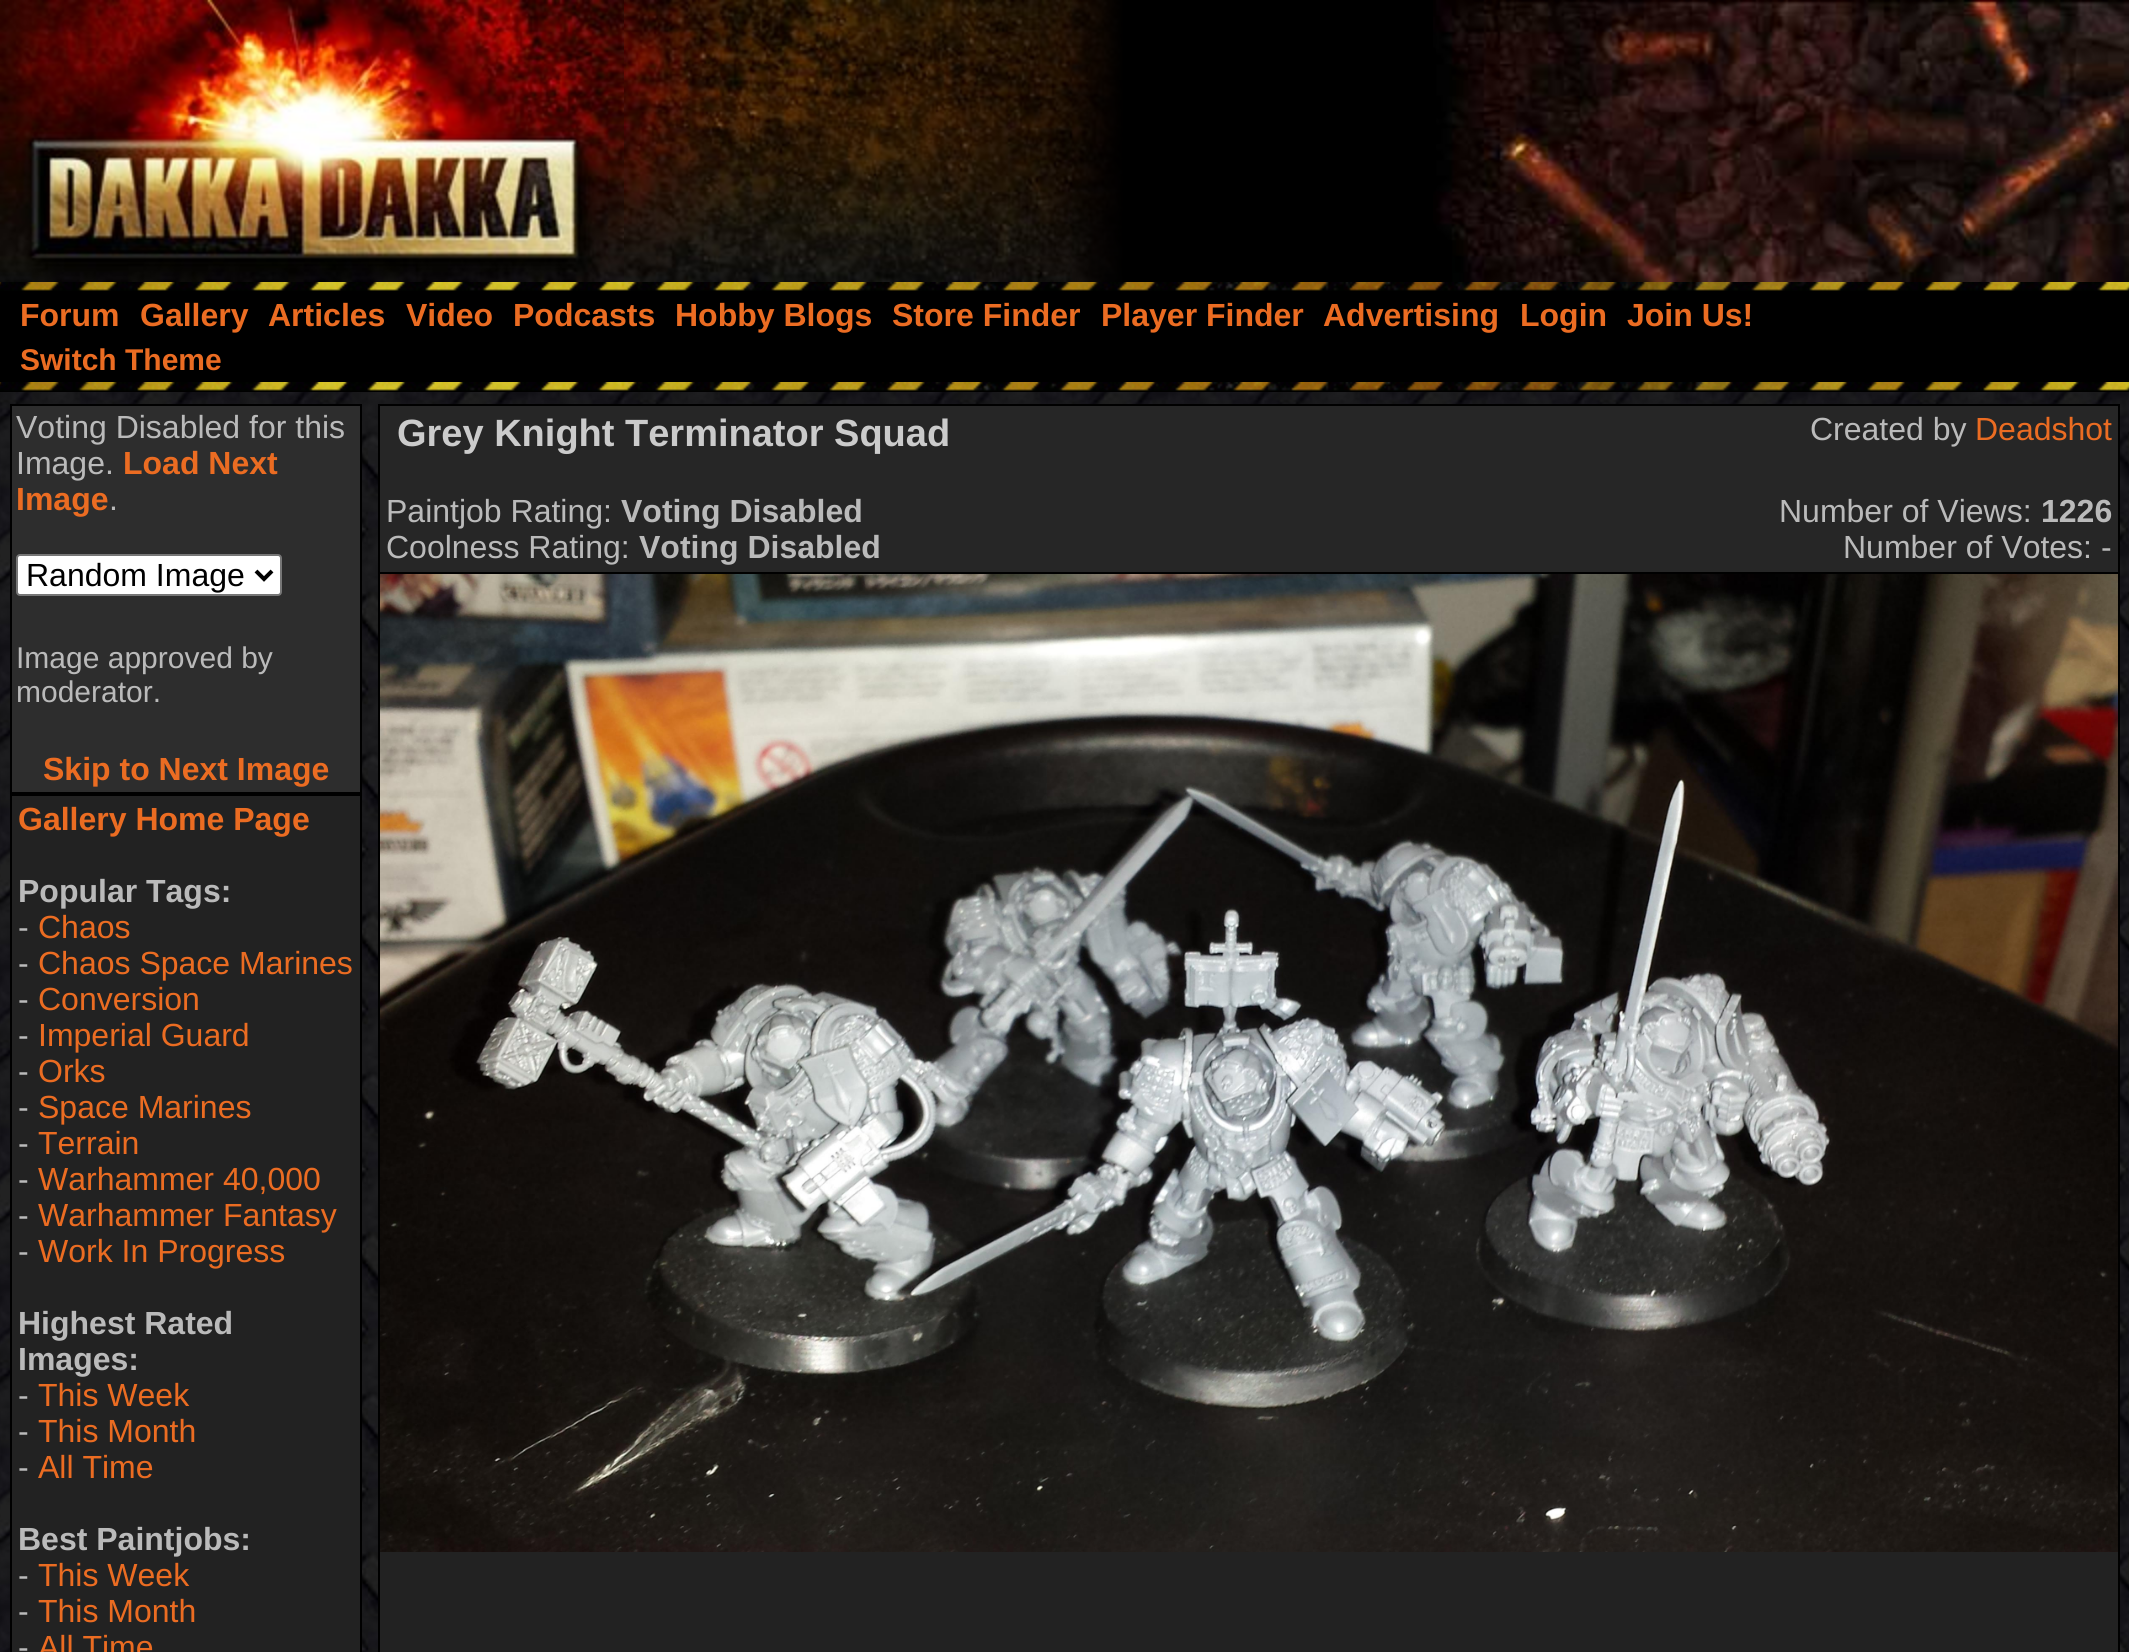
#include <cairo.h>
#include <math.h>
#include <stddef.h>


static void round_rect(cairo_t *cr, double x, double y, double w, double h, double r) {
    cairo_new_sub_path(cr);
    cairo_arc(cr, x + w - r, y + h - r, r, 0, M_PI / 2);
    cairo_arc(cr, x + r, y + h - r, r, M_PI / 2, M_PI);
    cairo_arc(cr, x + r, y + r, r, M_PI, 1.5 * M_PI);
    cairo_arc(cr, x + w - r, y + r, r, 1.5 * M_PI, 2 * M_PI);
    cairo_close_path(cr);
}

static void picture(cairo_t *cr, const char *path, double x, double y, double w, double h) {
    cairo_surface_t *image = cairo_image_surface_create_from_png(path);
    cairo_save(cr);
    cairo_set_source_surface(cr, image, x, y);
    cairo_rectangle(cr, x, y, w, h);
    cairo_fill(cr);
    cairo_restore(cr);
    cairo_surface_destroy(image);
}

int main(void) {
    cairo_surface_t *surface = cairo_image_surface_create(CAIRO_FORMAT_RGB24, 2129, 1652);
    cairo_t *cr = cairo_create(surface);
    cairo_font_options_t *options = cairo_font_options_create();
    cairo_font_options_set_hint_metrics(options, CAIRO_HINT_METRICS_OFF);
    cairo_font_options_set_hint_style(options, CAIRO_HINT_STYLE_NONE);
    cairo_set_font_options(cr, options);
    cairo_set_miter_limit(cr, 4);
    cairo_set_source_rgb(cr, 1, 1, 1);
    cairo_paint(cr);
    picture(cr, "img1.png", 0, 392, 2129, 1260);
    picture(cr, "img2.png", 624, 0, 500, 282);
    picture(cr, "img3.png", 0, 0, 624, 282);
    cairo_set_source_rgb(cr, 0, 0, 0);
    cairo_rectangle(cr, 1124, 0, 309, 282);
    cairo_fill(cr);
    picture(cr, "img4.png", 1433, 0, 696, 282);
    cairo_rectangle(cr, 0, 291, 2129, 91);
    cairo_fill(cr);
    picture(cr, "img5.png", 0, 282, 2129, 9);
    cairo_select_font_face(cr, "Liberation Sans", CAIRO_FONT_SLANT_NORMAL, CAIRO_FONT_WEIGHT_BOLD);
    cairo_set_font_size(cr, 32);
    cairo_set_source_rgb(cr, 0.918, 0.424, 0.133);
    cairo_move_to(cr, 20, 326);
    cairo_show_text(cr, "Forum");
    cairo_move_to(cr, 140, 326);
    cairo_show_text(cr, "Gallery");
    cairo_move_to(cr, 268, 326);
    cairo_show_text(cr, "Articles");
    cairo_move_to(cr, 406, 326);
    cairo_show_text(cr, "Video");
    cairo_move_to(cr, 513, 326);
    cairo_show_text(cr, "Podcasts");
    cairo_move_to(cr, 675, 326);
    cairo_show_text(cr, "Hobby Blogs");
    cairo_move_to(cr, 892, 326);
    cairo_show_text(cr, "Store Finder");
    cairo_move_to(cr, 1101, 326);
    cairo_show_text(cr, "Player Finder");
    cairo_move_to(cr, 1323, 326);
    cairo_show_text(cr, "Advertising");
    cairo_move_to(cr, 1520, 326);
    cairo_show_text(cr, "Login");
    cairo_move_to(cr, 1627, 326);
    cairo_show_text(cr, "Join Us!");
    cairo_set_font_size(cr, 30);
    cairo_move_to(cr, 20, 370);
    cairo_show_text(cr, "Switch Theme");
    cairo_set_source_rgb(cr, 0, 0, 0);
    cairo_rectangle(cr, 0, 391, 2129, 1);
    cairo_fill(cr);
    picture(cr, "img5.png", 0, 382, 2129, 9);
    cairo_rectangle(cr, 11, 405, 350, 388);
    cairo_stroke(cr);
    cairo_set_source_rgb(cr, 0.176, 0.176, 0.176);
    cairo_rectangle(cr, 12, 406, 348, 386);
    cairo_fill(cr);
    cairo_select_font_face(cr, "Liberation Sans", CAIRO_FONT_SLANT_NORMAL, CAIRO_FONT_WEIGHT_NORMAL);
    cairo_set_font_size(cr, 32);
    cairo_set_source_rgb(cr, 0.729, 0.729, 0.729);
    cairo_move_to(cr, 16, 438);
    cairo_show_text(cr, "Voting Disabled for this");
    cairo_move_to(cr, 16, 474);
    cairo_show_text(cr, "Image.");
    cairo_select_font_face(cr, "Liberation Sans", CAIRO_FONT_SLANT_NORMAL, CAIRO_FONT_WEIGHT_BOLD);
    cairo_set_source_rgb(cr, 0.918, 0.424, 0.133);
    cairo_move_to(cr, 123, 474);
    cairo_show_text(cr, "Load Next");
    cairo_move_to(cr, 16, 510);
    cairo_show_text(cr, "Image");
    cairo_select_font_face(cr, "Liberation Sans", CAIRO_FONT_SLANT_NORMAL, CAIRO_FONT_WEIGHT_NORMAL);
    cairo_set_source_rgb(cr, 0.729, 0.729, 0.729);
    cairo_move_to(cr, 109, 510);
    cairo_show_text(cr, ".");
    cairo_set_source_rgb(cr, 1, 1, 1);
    round_rect(cr, 17, 555, 264, 40, 3);
    cairo_fill_preserve(cr);
    cairo_set_source_rgb(cr, 0.463, 0.463, 0.463);
    cairo_stroke(cr);
    cairo_new_path(cr);
    cairo_move_to(cr, 256, 571);
    cairo_line_to(cr, 264, 579);
    cairo_line_to(cr, 272, 571);
    cairo_set_source_rgb(cr, 0, 0, 0);
    cairo_set_line_width(cr, 4);
    cairo_stroke(cr);
    cairo_move_to(cr, 26, 586);
    cairo_show_text(cr, "Random Image");
    cairo_set_font_size(cr, 30);
    cairo_set_source_rgb(cr, 0.729, 0.729, 0.729);
    cairo_move_to(cr, 16, 668);
    cairo_show_text(cr, "Image approved by");
    cairo_move_to(cr, 16, 702);
    cairo_show_text(cr, "moderator.");
    cairo_select_font_face(cr, "Liberation Sans", CAIRO_FONT_SLANT_NORMAL, CAIRO_FONT_WEIGHT_BOLD);
    cairo_set_font_size(cr, 32);
    cairo_set_source_rgb(cr, 0.918, 0.424, 0.133);
    cairo_move_to(cr, 43, 780);
    cairo_show_text(cr, "Skip to Next Image");
    cairo_rectangle(cr, 11, 795, 350, 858);
    cairo_set_source_rgb(cr, 0, 0, 0);
    cairo_set_line_width(cr, 2);
    cairo_stroke(cr);
    cairo_set_source_rgb(cr, 0.133, 0.133, 0.133);
    cairo_rectangle(cr, 12, 796, 348, 856);
    cairo_fill(cr);
    cairo_set_source_rgb(cr, 0.918, 0.424, 0.133);
    cairo_move_to(cr, 18, 830);
    cairo_show_text(cr, "Gallery Home Page");
    cairo_set_source_rgb(cr, 0.729, 0.729, 0.729);
    cairo_move_to(cr, 18, 902);
    cairo_show_text(cr, "Popular Tags:");
    cairo_select_font_face(cr, "Liberation Sans", CAIRO_FONT_SLANT_NORMAL, CAIRO_FONT_WEIGHT_NORMAL);
    cairo_move_to(cr, 18, 938);
    cairo_show_text(cr, "-");
    cairo_set_source_rgb(cr, 0.918, 0.424, 0.133);
    cairo_move_to(cr, 38, 938);
    cairo_show_text(cr, "Chaos");
    cairo_set_source_rgb(cr, 0.729, 0.729, 0.729);
    cairo_move_to(cr, 18, 974);
    cairo_show_text(cr, "-");
    cairo_set_source_rgb(cr, 0.918, 0.424, 0.133);
    cairo_move_to(cr, 38, 974);
    cairo_show_text(cr, "Chaos Space Marines");
    cairo_set_source_rgb(cr, 0.729, 0.729, 0.729);
    cairo_move_to(cr, 18, 1010);
    cairo_show_text(cr, "-");
    cairo_set_source_rgb(cr, 0.918, 0.424, 0.133);
    cairo_move_to(cr, 38, 1010);
    cairo_show_text(cr, "Conversion");
    cairo_set_source_rgb(cr, 0.729, 0.729, 0.729);
    cairo_move_to(cr, 18, 1046);
    cairo_show_text(cr, "-");
    cairo_set_source_rgb(cr, 0.918, 0.424, 0.133);
    cairo_move_to(cr, 38, 1046);
    cairo_show_text(cr, "Imperial Guard");
    cairo_set_source_rgb(cr, 0.729, 0.729, 0.729);
    cairo_move_to(cr, 18, 1082);
    cairo_show_text(cr, "-");
    cairo_set_source_rgb(cr, 0.918, 0.424, 0.133);
    cairo_move_to(cr, 38, 1082);
    cairo_show_text(cr, "Orks");
    cairo_set_source_rgb(cr, 0.729, 0.729, 0.729);
    cairo_move_to(cr, 18, 1118);
    cairo_show_text(cr, "-");
    cairo_set_source_rgb(cr, 0.918, 0.424, 0.133);
    cairo_move_to(cr, 38, 1118);
    cairo_show_text(cr, "Space Marines");
    cairo_set_source_rgb(cr, 0.729, 0.729, 0.729);
    cairo_move_to(cr, 18, 1154);
    cairo_show_text(cr, "-");
    cairo_set_source_rgb(cr, 0.918, 0.424, 0.133);
    cairo_move_to(cr, 38, 1154);
    cairo_show_text(cr, "Terrain");
    cairo_set_source_rgb(cr, 0.729, 0.729, 0.729);
    cairo_move_to(cr, 18, 1190);
    cairo_show_text(cr, "-");
    cairo_set_source_rgb(cr, 0.918, 0.424, 0.133);
    cairo_move_to(cr, 38, 1190);
    cairo_show_text(cr, "Warhammer 40,000");
    cairo_set_source_rgb(cr, 0.729, 0.729, 0.729);
    cairo_move_to(cr, 18, 1226);
    cairo_show_text(cr, "-");
    cairo_set_source_rgb(cr, 0.918, 0.424, 0.133);
    cairo_move_to(cr, 38, 1226);
    cairo_show_text(cr, "Warhammer Fantasy");
    cairo_set_source_rgb(cr, 0.729, 0.729, 0.729);
    cairo_move_to(cr, 18, 1262);
    cairo_show_text(cr, "-");
    cairo_set_source_rgb(cr, 0.918, 0.424, 0.133);
    cairo_move_to(cr, 38, 1262);
    cairo_show_text(cr, "Work In Progress");
    cairo_select_font_face(cr, "Liberation Sans", CAIRO_FONT_SLANT_NORMAL, CAIRO_FONT_WEIGHT_BOLD);
    cairo_set_source_rgb(cr, 0.729, 0.729, 0.729);
    cairo_move_to(cr, 18, 1334);
    cairo_show_text(cr, "Highest Rated");
    cairo_move_to(cr, 18, 1370);
    cairo_show_text(cr, "Images:");
    cairo_select_font_face(cr, "Liberation Sans", CAIRO_FONT_SLANT_NORMAL, CAIRO_FONT_WEIGHT_NORMAL);
    cairo_move_to(cr, 18, 1406);
    cairo_show_text(cr, "-");
    cairo_set_source_rgb(cr, 0.918, 0.424, 0.133);
    cairo_move_to(cr, 38, 1406);
    cairo_show_text(cr, "This Week");
    cairo_set_source_rgb(cr, 0.729, 0.729, 0.729);
    cairo_move_to(cr, 18, 1442);
    cairo_show_text(cr, "-");
    cairo_set_source_rgb(cr, 0.918, 0.424, 0.133);
    cairo_move_to(cr, 38, 1442);
    cairo_show_text(cr, "This Month");
    cairo_set_source_rgb(cr, 0.729, 0.729, 0.729);
    cairo_move_to(cr, 18, 1478);
    cairo_show_text(cr, "-");
    cairo_set_source_rgb(cr, 0.918, 0.424, 0.133);
    cairo_move_to(cr, 38, 1478);
    cairo_show_text(cr, "All Time");
    cairo_select_font_face(cr, "Liberation Sans", CAIRO_FONT_SLANT_NORMAL, CAIRO_FONT_WEIGHT_BOLD);
    cairo_set_source_rgb(cr, 0.729, 0.729, 0.729);
    cairo_move_to(cr, 18, 1550);
    cairo_show_text(cr, "Best Paintjobs:");
    cairo_select_font_face(cr, "Liberation Sans", CAIRO_FONT_SLANT_NORMAL, CAIRO_FONT_WEIGHT_NORMAL);
    cairo_move_to(cr, 18, 1586);
    cairo_show_text(cr, "-");
    cairo_set_source_rgb(cr, 0.918, 0.424, 0.133);
    cairo_move_to(cr, 38, 1586);
    cairo_show_text(cr, "This Week");
    cairo_set_source_rgb(cr, 0.729, 0.729, 0.729);
    cairo_move_to(cr, 18, 1622);
    cairo_show_text(cr, "-");
    cairo_set_source_rgb(cr, 0.918, 0.424, 0.133);
    cairo_move_to(cr, 38, 1622);
    cairo_show_text(cr, "This Month");
    cairo_set_source_rgb(cr, 0.729, 0.729, 0.729);
    cairo_move_to(cr, 18, 1658);
    cairo_show_text(cr, "-");
    cairo_set_source_rgb(cr, 0.918, 0.424, 0.133);
    cairo_move_to(cr, 38, 1658);
    cairo_show_text(cr, "All Time");
    cairo_rectangle(cr, 379, 405, 1740, 168);
    cairo_set_source_rgb(cr, 0, 0, 0);
    cairo_stroke(cr);
    cairo_set_source_rgb(cr, 0.149, 0.149, 0.149);
    cairo_rectangle(cr, 380, 406, 1738, 166);
    cairo_fill(cr);
    cairo_select_font_face(cr, "Liberation Sans", CAIRO_FONT_SLANT_NORMAL, CAIRO_FONT_WEIGHT_BOLD);
    cairo_set_font_size(cr, 38);
    cairo_set_source_rgb(cr, 0.796, 0.796, 0.796);
    cairo_move_to(cr, 397, 446);
    cairo_show_text(cr, "Grey Knight Terminator Squad");
    cairo_select_font_face(cr, "Liberation Sans", CAIRO_FONT_SLANT_NORMAL, CAIRO_FONT_WEIGHT_NORMAL);
    cairo_set_font_size(cr, 32);
    cairo_set_source_rgb(cr, 0.729, 0.729, 0.729);
    cairo_move_to(cr, 1810, 440);
    cairo_show_text(cr, "Created by");
    cairo_set_source_rgb(cr, 0.918, 0.424, 0.133);
    cairo_move_to(cr, 1975, 440);
    cairo_show_text(cr, "Deadshot");
    cairo_set_source_rgb(cr, 0.729, 0.729, 0.729);
    cairo_move_to(cr, 386, 522);
    cairo_show_text(cr, "Paintjob Rating:");
    cairo_select_font_face(cr, "Liberation Sans", CAIRO_FONT_SLANT_NORMAL, CAIRO_FONT_WEIGHT_BOLD);
    cairo_move_to(cr, 621, 522);
    cairo_show_text(cr, "Voting Disabled");
    cairo_select_font_face(cr, "Liberation Sans", CAIRO_FONT_SLANT_NORMAL, CAIRO_FONT_WEIGHT_NORMAL);
    cairo_move_to(cr, 1779, 522);
    cairo_show_text(cr, "Number of Views:");
    cairo_select_font_face(cr, "Liberation Sans", CAIRO_FONT_SLANT_NORMAL, CAIRO_FONT_WEIGHT_BOLD);
    cairo_move_to(cr, 2041, 522);
    cairo_show_text(cr, "1226");
    cairo_select_font_face(cr, "Liberation Sans", CAIRO_FONT_SLANT_NORMAL, CAIRO_FONT_WEIGHT_NORMAL);
    cairo_move_to(cr, 386, 558);
    cairo_show_text(cr, "Coolness Rating:");
    cairo_select_font_face(cr, "Liberation Sans", CAIRO_FONT_SLANT_NORMAL, CAIRO_FONT_WEIGHT_BOLD);
    cairo_move_to(cr, 639, 558);
    cairo_show_text(cr, "Voting Disabled");
    cairo_select_font_face(cr, "Liberation Sans", CAIRO_FONT_SLANT_NORMAL, CAIRO_FONT_WEIGHT_NORMAL);
    cairo_move_to(cr, 1843, 558);
    cairo_show_text(cr, "Number of Votes: -");
    cairo_set_source_rgb(cr, 0, 0, 0);
    cairo_rectangle(cr, 2118, 574, 2, 1078);
    cairo_fill(cr);
    cairo_rectangle(cr, 378, 574, 2, 1078);
    cairo_fill(cr);
    cairo_set_source_rgb(cr, 0.133, 0.133, 0.133);
    cairo_rectangle(cr, 380, 1552, 1738, 100);
    cairo_fill(cr);
    picture(cr, "img6.png", 380, 574, 1738, 978);
    cairo_surface_write_to_png(surface, "page.png");
    cairo_font_options_destroy(options);
    cairo_destroy(cr);
    cairo_surface_destroy(surface);
    return 0;
}
